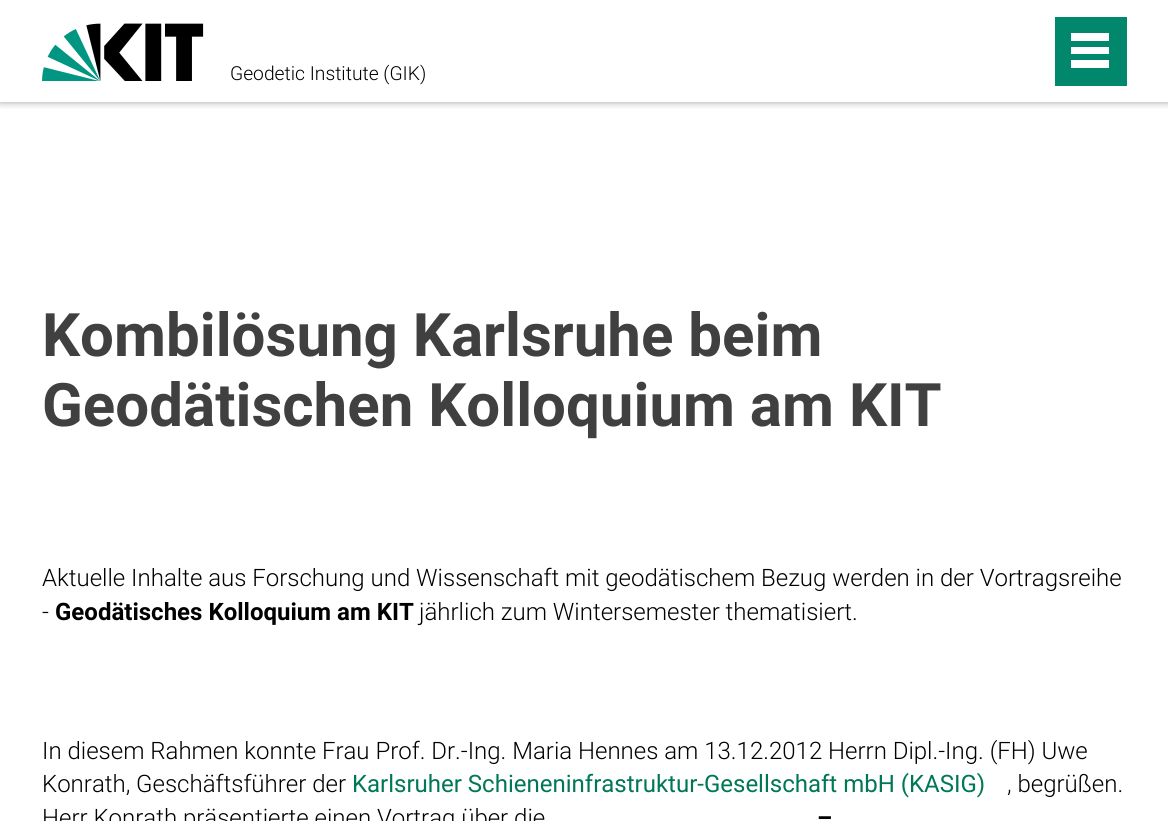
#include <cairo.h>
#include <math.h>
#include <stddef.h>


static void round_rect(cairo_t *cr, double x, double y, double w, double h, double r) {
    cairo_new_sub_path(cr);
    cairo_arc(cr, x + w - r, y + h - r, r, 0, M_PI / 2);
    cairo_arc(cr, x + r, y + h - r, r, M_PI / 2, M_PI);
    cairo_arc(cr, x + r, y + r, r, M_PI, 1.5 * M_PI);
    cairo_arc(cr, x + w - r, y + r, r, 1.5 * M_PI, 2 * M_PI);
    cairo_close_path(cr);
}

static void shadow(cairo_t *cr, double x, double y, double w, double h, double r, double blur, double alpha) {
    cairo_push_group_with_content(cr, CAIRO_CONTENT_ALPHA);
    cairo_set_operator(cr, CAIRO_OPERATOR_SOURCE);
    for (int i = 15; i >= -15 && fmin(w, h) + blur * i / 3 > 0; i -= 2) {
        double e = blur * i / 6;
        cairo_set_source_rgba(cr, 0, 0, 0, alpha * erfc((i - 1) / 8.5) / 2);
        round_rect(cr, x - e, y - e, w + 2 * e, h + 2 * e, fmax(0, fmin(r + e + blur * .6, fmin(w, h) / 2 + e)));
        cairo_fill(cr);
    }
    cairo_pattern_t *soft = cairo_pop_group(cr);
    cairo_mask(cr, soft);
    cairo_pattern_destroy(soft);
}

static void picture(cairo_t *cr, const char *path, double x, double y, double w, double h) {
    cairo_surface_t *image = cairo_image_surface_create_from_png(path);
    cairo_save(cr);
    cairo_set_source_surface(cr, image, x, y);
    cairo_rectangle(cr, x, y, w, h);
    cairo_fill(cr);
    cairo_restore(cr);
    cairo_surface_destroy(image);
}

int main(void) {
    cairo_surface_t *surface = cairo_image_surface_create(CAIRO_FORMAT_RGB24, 1168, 821);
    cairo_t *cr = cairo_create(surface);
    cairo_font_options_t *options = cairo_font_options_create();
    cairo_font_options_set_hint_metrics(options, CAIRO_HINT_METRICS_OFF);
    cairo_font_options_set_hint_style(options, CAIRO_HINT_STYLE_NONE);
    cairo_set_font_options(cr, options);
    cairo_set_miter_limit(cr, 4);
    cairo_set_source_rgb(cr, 1, 1, 1);
    cairo_paint(cr);
    cairo_save(cr);
    cairo_rectangle(cr, 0, 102, 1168, 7);
    cairo_clip(cr);
    cairo_set_source_rgb(cr, 0.251, 0.251, 0.251);
    shadow(cr, 0, 0, 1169, 102, 0, 4, 0.5);
    cairo_restore(cr);
    picture(cr, "img1.png", 42, 23, 162, 58);
    cairo_select_font_face(cr, "Roboto Light", CAIRO_FONT_SLANT_NORMAL, CAIRO_FONT_WEIGHT_NORMAL);
    cairo_set_font_size(cr, 19.25);
    cairo_set_source_rgb(cr, 0, 0, 0);
    cairo_move_to(cr, 230, 80);
    cairo_show_text(cr, "Geodetic Institute (GIK)");
    cairo_set_source_rgb(cr, 0, 0.529, 0.424);
    cairo_rectangle(cr, 1055, 17, 72, 69);
    cairo_fill(cr);
    cairo_set_source_rgb(cr, 1, 1, 1);
    cairo_rectangle(cr, 1071, 60, 38, 8);
    cairo_fill(cr);
    cairo_rectangle(cr, 1071, 47, 38, 7);
    cairo_fill(cr);
    cairo_rectangle(cr, 1071, 33, 38, 8);
    cairo_fill(cr);
    cairo_select_font_face(cr, "Roboto", CAIRO_FONT_SLANT_NORMAL, CAIRO_FONT_WEIGHT_BOLD);
    cairo_set_font_size(cr, 60);
    cairo_set_source_rgb(cr, 0.251, 0.251, 0.251);
    cairo_move_to(cr, 42, 356);
    cairo_show_text(cr, "Kombilösung Karlsruhe beim");
    cairo_move_to(cr, 42, 426);
    cairo_show_text(cr, "Geodätischen Kolloquium am KIT");
    cairo_select_font_face(cr, "Roboto Light", CAIRO_FONT_SLANT_NORMAL, CAIRO_FONT_WEIGHT_NORMAL);
    cairo_set_font_size(cr, 24);
    cairo_set_source_rgb(cr, 0, 0, 0);
    cairo_move_to(cr, 42, 586);
    cairo_show_text(cr, "Aktuelle Inhalte aus Forschung und Wissenschaft mit geodätischem Bezug werden in der Vortragsreihe");
    cairo_move_to(cr, 42, 620);
    cairo_show_text(cr, "-");
    cairo_select_font_face(cr, "Roboto", CAIRO_FONT_SLANT_NORMAL, CAIRO_FONT_WEIGHT_BOLD);
    cairo_move_to(cr, 55, 620);
    cairo_show_text(cr, "Geodätisches Kolloquium am KIT");
    cairo_select_font_face(cr, "Roboto Light", CAIRO_FONT_SLANT_NORMAL, CAIRO_FONT_WEIGHT_NORMAL);
    cairo_move_to(cr, 419, 620);
    cairo_show_text(cr, "jährlich zum Wintersemester thematisiert.");
    cairo_move_to(cr, 42, 759);
    cairo_show_text(cr, "In diesem Rahmen konnte Frau Prof. Dr.-Ing. Maria Hennes am 13.12.2012 Herrn Dipl.-Ing. (FH) Uwe");
    cairo_move_to(cr, 42, 792);
    cairo_show_text(cr, "Konrath, Geschäftsführer der");
    cairo_select_font_face(cr, "Roboto", CAIRO_FONT_SLANT_NORMAL, CAIRO_FONT_WEIGHT_NORMAL);
    cairo_set_source_rgb(cr, 0, 0.467, 0.333);
    cairo_move_to(cr, 352, 792);
    cairo_show_text(cr, "Karlsruher Schieneninfrastruktur-Gesellschaft mbH (KASIG)");
    cairo_select_font_face(cr, "Roboto Light", CAIRO_FONT_SLANT_NORMAL, CAIRO_FONT_WEIGHT_NORMAL);
    cairo_set_source_rgb(cr, 0, 0, 0);
    cairo_move_to(cr, 1007, 792);
    cairo_show_text(cr, ", begrüßen.");
    cairo_move_to(cr, 42, 826);
    cairo_show_text(cr, "Herr Konrath präsentierte einen Vortrag über die");
    cairo_select_font_face(cr, "Roboto", CAIRO_FONT_SLANT_NORMAL, CAIRO_FONT_WEIGHT_BOLD);
    cairo_move_to(cr, 817, 826);
    cairo_show_text(cr, "–");
    cairo_surface_write_to_png(surface, "page.png");
    cairo_font_options_destroy(options);
    cairo_destroy(cr);
    cairo_surface_destroy(surface);
    return 0;
}
